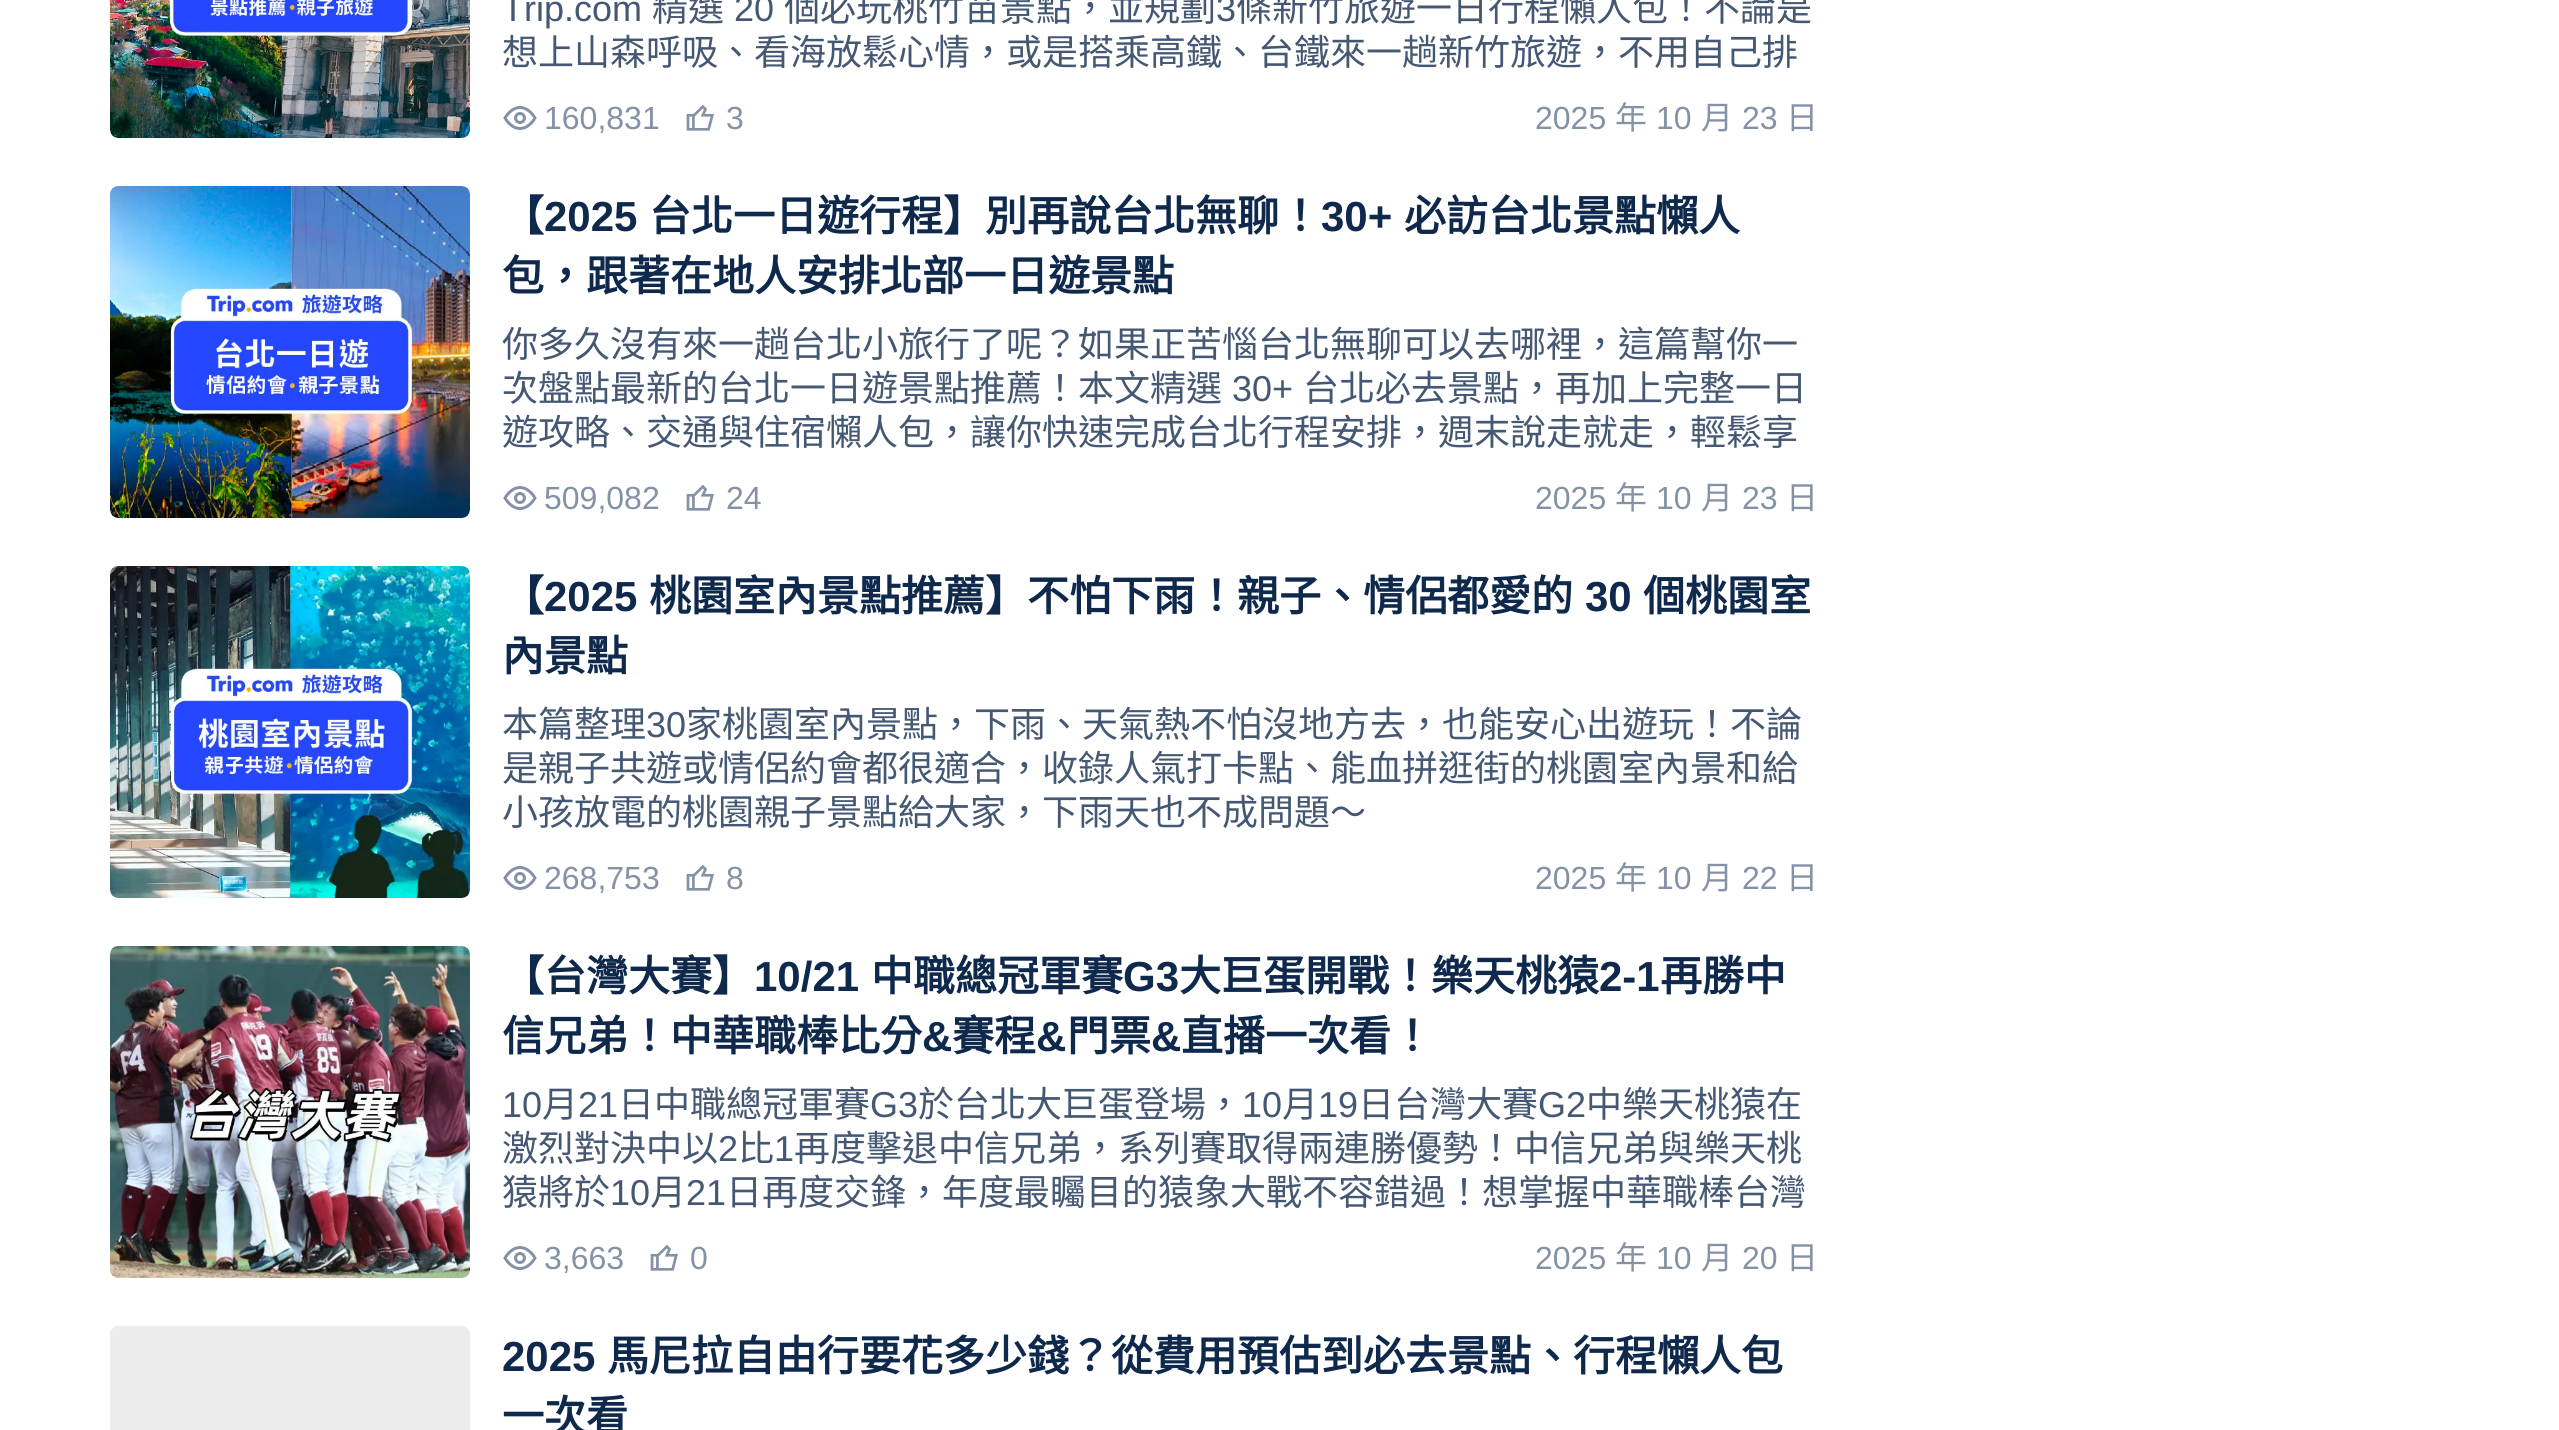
#include <cairo.h>
#include <math.h>
#include <stddef.h>


static void round_rect(cairo_t *cr, double x, double y, double w, double h, double r) {
    cairo_new_sub_path(cr);
    cairo_arc(cr, x + w - r, y + h - r, r, 0, M_PI / 2);
    cairo_arc(cr, x + r, y + h - r, r, M_PI / 2, M_PI);
    cairo_arc(cr, x + r, y + r, r, M_PI, 1.5 * M_PI);
    cairo_arc(cr, x + w - r, y + r, r, 1.5 * M_PI, 2 * M_PI);
    cairo_close_path(cr);
}

static void picture(cairo_t *cr, const char *path, double x, double y, double w, double h) {
    cairo_surface_t *image = cairo_image_surface_create_from_png(path);
    cairo_save(cr);
    cairo_set_source_surface(cr, image, x, y);
    cairo_rectangle(cr, x, y, w, h);
    cairo_fill(cr);
    cairo_restore(cr);
    cairo_surface_destroy(image);
}

int main(void) {
    cairo_surface_t *surface = cairo_image_surface_create(CAIRO_FORMAT_RGB24, 2559, 1430);
    cairo_t *cr = cairo_create(surface);
    cairo_font_options_t *options = cairo_font_options_create();
    cairo_font_options_set_hint_metrics(options, CAIRO_HINT_METRICS_OFF);
    cairo_font_options_set_hint_style(options, CAIRO_HINT_STYLE_NONE);
    cairo_set_font_options(cr, options);
    cairo_set_miter_limit(cr, 4);
    cairo_set_source_rgb(cr, 1, 1, 1);
    cairo_paint(cr);
    cairo_set_source_rgb(cr, 0.922, 0.922, 0.922);
    round_rect(cr, 110, -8, 360, 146, 8);
    cairo_fill(cr);
    picture(cr, "img1.png", 110, 0, 360, 138);
    cairo_select_font_face(cr, "Liberation Sans", CAIRO_FONT_SLANT_NORMAL, CAIRO_FONT_WEIGHT_NORMAL);
    cairo_set_font_size(cr, 36);
    cairo_set_source_rgb(cr, 0.271, 0.345, 0.451);
    cairo_move_to(cr, 502, 21);
    cairo_show_text(cr, "Trip.com");
    cairo_select_font_face(cr, "Noto Sans CJK TC", CAIRO_FONT_SLANT_NORMAL, CAIRO_FONT_WEIGHT_NORMAL);
    cairo_move_to(cr, 652, 21);
    cairo_show_text(cr, "精選");
    cairo_select_font_face(cr, "Liberation Sans", CAIRO_FONT_SLANT_NORMAL, CAIRO_FONT_WEIGHT_NORMAL);
    cairo_move_to(cr, 734, 21);
    cairo_show_text(cr, "20");
    cairo_select_font_face(cr, "Noto Sans CJK TC", CAIRO_FONT_SLANT_NORMAL, CAIRO_FONT_WEIGHT_NORMAL);
    cairo_move_to(cr, 784, 21);
    cairo_show_text(cr, "個必玩桃竹苗景點，並規劃");
    cairo_select_font_face(cr, "Liberation Sans", CAIRO_FONT_SLANT_NORMAL, CAIRO_FONT_WEIGHT_NORMAL);
    cairo_move_to(cr, 1216, 21);
    cairo_show_text(cr, "3");
    cairo_select_font_face(cr, "Noto Sans CJK TC", CAIRO_FONT_SLANT_NORMAL, CAIRO_FONT_WEIGHT_NORMAL);
    cairo_move_to(cr, 1236, 21);
    cairo_show_text(cr, "條新竹旅遊一日行程懶人包！不論是");
    cairo_move_to(cr, 502, 65);
    cairo_show_text(cr, "想上山森呼吸、看海放鬆心情，或是搭乘高鐵、台鐵來一趟新竹旅遊，不用自己排");
    picture(cr, "img2.png", 503, 106, 34, 24);
    cairo_select_font_face(cr, "Liberation Sans", CAIRO_FONT_SLANT_NORMAL, CAIRO_FONT_WEIGHT_NORMAL);
    cairo_set_font_size(cr, 32);
    cairo_set_source_rgb(cr, 0.522, 0.573, 0.651);
    cairo_move_to(cr, 544, 129);
    cairo_show_text(cr, "160,831");
    picture(cr, "img3.png", 686, 104, 28, 27);
    cairo_move_to(cr, 726, 129);
    cairo_show_text(cr, "3");
    cairo_move_to(cr, 1535, 129);
    cairo_show_text(cr, "2025");
    cairo_select_font_face(cr, "Noto Sans CJK TC", CAIRO_FONT_SLANT_NORMAL, CAIRO_FONT_WEIGHT_NORMAL);
    cairo_move_to(cr, 1615, 129);
    cairo_show_text(cr, "年");
    cairo_select_font_face(cr, "Liberation Sans", CAIRO_FONT_SLANT_NORMAL, CAIRO_FONT_WEIGHT_NORMAL);
    cairo_move_to(cr, 1656, 129);
    cairo_show_text(cr, "10");
    cairo_select_font_face(cr, "Noto Sans CJK TC", CAIRO_FONT_SLANT_NORMAL, CAIRO_FONT_WEIGHT_NORMAL);
    cairo_move_to(cr, 1701, 129);
    cairo_show_text(cr, "月");
    cairo_select_font_face(cr, "Liberation Sans", CAIRO_FONT_SLANT_NORMAL, CAIRO_FONT_WEIGHT_NORMAL);
    cairo_move_to(cr, 1742, 129);
    cairo_show_text(cr, "23");
    cairo_select_font_face(cr, "Noto Sans CJK TC", CAIRO_FONT_SLANT_NORMAL, CAIRO_FONT_WEIGHT_NORMAL);
    cairo_move_to(cr, 1786, 129);
    cairo_show_text(cr, "日");
    cairo_set_source_rgb(cr, 0.922, 0.922, 0.922);
    round_rect(cr, 110, 186, 360, 332, 8);
    cairo_fill(cr);
    picture(cr, "img4.png", 110, 186, 360, 332);
    cairo_select_font_face(cr, "Noto Sans CJK TC", CAIRO_FONT_SLANT_NORMAL, CAIRO_FONT_WEIGHT_BOLD);
    cairo_set_font_size(cr, 42);
    cairo_set_source_rgb(cr, 0.059, 0.161, 0.302);
    cairo_move_to(cr, 502, 231);
    cairo_show_text(cr, "【");
    cairo_select_font_face(cr, "Liberation Sans", CAIRO_FONT_SLANT_NORMAL, CAIRO_FONT_WEIGHT_BOLD);
    cairo_move_to(cr, 544, 231);
    cairo_show_text(cr, "2025");
    cairo_select_font_face(cr, "Noto Sans CJK TC", CAIRO_FONT_SLANT_NORMAL, CAIRO_FONT_WEIGHT_BOLD);
    cairo_move_to(cr, 649, 231);
    cairo_show_text(cr, "台北一日遊行程】別再說台北無聊！");
    cairo_select_font_face(cr, "Liberation Sans", CAIRO_FONT_SLANT_NORMAL, CAIRO_FONT_WEIGHT_BOLD);
    cairo_move_to(cr, 1321, 231);
    cairo_show_text(cr, "30+");
    cairo_select_font_face(cr, "Noto Sans CJK TC", CAIRO_FONT_SLANT_NORMAL, CAIRO_FONT_WEIGHT_BOLD);
    cairo_move_to(cr, 1404, 231);
    cairo_show_text(cr, "必訪台北景點懶人");
    cairo_move_to(cr, 502, 291);
    cairo_show_text(cr, "包，跟著在地人安排北部一日遊景點");
    cairo_select_font_face(cr, "Noto Sans CJK TC", CAIRO_FONT_SLANT_NORMAL, CAIRO_FONT_WEIGHT_NORMAL);
    cairo_set_font_size(cr, 36);
    cairo_set_source_rgb(cr, 0.271, 0.345, 0.451);
    cairo_move_to(cr, 502, 357);
    cairo_show_text(cr, "你多久沒有來一趟台北小旅行了呢？如果正苦惱台北無聊可以去哪裡，這篇幫你一");
    cairo_move_to(cr, 502, 401);
    cairo_show_text(cr, "次盤點最新的台北一日遊景點推薦！本文精選");
    cairo_select_font_face(cr, "Liberation Sans", CAIRO_FONT_SLANT_NORMAL, CAIRO_FONT_WEIGHT_NORMAL);
    cairo_move_to(cr, 1232, 401);
    cairo_show_text(cr, "30+");
    cairo_select_font_face(cr, "Noto Sans CJK TC", CAIRO_FONT_SLANT_NORMAL, CAIRO_FONT_WEIGHT_NORMAL);
    cairo_move_to(cr, 1303, 401);
    cairo_show_text(cr, "台北必去景點，再加上完整一日");
    cairo_move_to(cr, 502, 445);
    cairo_show_text(cr, "遊攻略、交通與住宿懶人包，讓你快速完成台北行程安排，週末說走就走，輕鬆享");
    picture(cr, "img2.png", 503, 486, 34, 24);
    cairo_select_font_face(cr, "Liberation Sans", CAIRO_FONT_SLANT_NORMAL, CAIRO_FONT_WEIGHT_NORMAL);
    cairo_set_font_size(cr, 32);
    cairo_set_source_rgb(cr, 0.522, 0.573, 0.651);
    cairo_move_to(cr, 544, 509);
    cairo_show_text(cr, "509,082");
    picture(cr, "img3.png", 686, 484, 28, 27);
    cairo_move_to(cr, 726, 509);
    cairo_show_text(cr, "24");
    cairo_move_to(cr, 1535, 509);
    cairo_show_text(cr, "2025");
    cairo_select_font_face(cr, "Noto Sans CJK TC", CAIRO_FONT_SLANT_NORMAL, CAIRO_FONT_WEIGHT_NORMAL);
    cairo_move_to(cr, 1615, 509);
    cairo_show_text(cr, "年");
    cairo_select_font_face(cr, "Liberation Sans", CAIRO_FONT_SLANT_NORMAL, CAIRO_FONT_WEIGHT_NORMAL);
    cairo_move_to(cr, 1656, 509);
    cairo_show_text(cr, "10");
    cairo_select_font_face(cr, "Noto Sans CJK TC", CAIRO_FONT_SLANT_NORMAL, CAIRO_FONT_WEIGHT_NORMAL);
    cairo_move_to(cr, 1701, 509);
    cairo_show_text(cr, "月");
    cairo_select_font_face(cr, "Liberation Sans", CAIRO_FONT_SLANT_NORMAL, CAIRO_FONT_WEIGHT_NORMAL);
    cairo_move_to(cr, 1742, 509);
    cairo_show_text(cr, "23");
    cairo_select_font_face(cr, "Noto Sans CJK TC", CAIRO_FONT_SLANT_NORMAL, CAIRO_FONT_WEIGHT_NORMAL);
    cairo_move_to(cr, 1786, 509);
    cairo_show_text(cr, "日");
    cairo_set_source_rgb(cr, 0.922, 0.922, 0.922);
    round_rect(cr, 110, 566, 360, 332, 8);
    cairo_fill(cr);
    picture(cr, "img5.png", 110, 566, 360, 332);
    cairo_select_font_face(cr, "Noto Sans CJK TC", CAIRO_FONT_SLANT_NORMAL, CAIRO_FONT_WEIGHT_BOLD);
    cairo_set_font_size(cr, 42);
    cairo_set_source_rgb(cr, 0.059, 0.161, 0.302);
    cairo_move_to(cr, 502, 611);
    cairo_show_text(cr, "【");
    cairo_select_font_face(cr, "Liberation Sans", CAIRO_FONT_SLANT_NORMAL, CAIRO_FONT_WEIGHT_BOLD);
    cairo_move_to(cr, 544, 611);
    cairo_show_text(cr, "2025");
    cairo_select_font_face(cr, "Noto Sans CJK TC", CAIRO_FONT_SLANT_NORMAL, CAIRO_FONT_WEIGHT_BOLD);
    cairo_move_to(cr, 649, 611);
    cairo_show_text(cr, "桃園室內景點推薦】不怕下雨！親子、情侶都愛的");
    cairo_select_font_face(cr, "Liberation Sans", CAIRO_FONT_SLANT_NORMAL, CAIRO_FONT_WEIGHT_BOLD);
    cairo_move_to(cr, 1585, 611);
    cairo_show_text(cr, "30");
    cairo_select_font_face(cr, "Noto Sans CJK TC", CAIRO_FONT_SLANT_NORMAL, CAIRO_FONT_WEIGHT_BOLD);
    cairo_move_to(cr, 1643, 611);
    cairo_show_text(cr, "個桃園室");
    cairo_move_to(cr, 502, 671);
    cairo_show_text(cr, "內景點");
    cairo_select_font_face(cr, "Noto Sans CJK TC", CAIRO_FONT_SLANT_NORMAL, CAIRO_FONT_WEIGHT_NORMAL);
    cairo_set_font_size(cr, 36);
    cairo_set_source_rgb(cr, 0.271, 0.345, 0.451);
    cairo_move_to(cr, 502, 737);
    cairo_show_text(cr, "本篇整理");
    cairo_select_font_face(cr, "Liberation Sans", CAIRO_FONT_SLANT_NORMAL, CAIRO_FONT_WEIGHT_NORMAL);
    cairo_move_to(cr, 646, 737);
    cairo_show_text(cr, "30");
    cairo_select_font_face(cr, "Noto Sans CJK TC", CAIRO_FONT_SLANT_NORMAL, CAIRO_FONT_WEIGHT_NORMAL);
    cairo_move_to(cr, 686, 737);
    cairo_show_text(cr, "家桃園室內景點，下雨、天氣熱不怕沒地方去，也能安心出遊玩！不論");
    cairo_move_to(cr, 502, 781);
    cairo_show_text(cr, "是親子共遊或情侶約會都很適合，收錄人氣打卡點、能血拼逛街的桃園室內景和給");
    cairo_move_to(cr, 502, 825);
    cairo_show_text(cr, "小孩放電的桃園親子景點給大家，下雨天也不成問題～");
    picture(cr, "img2.png", 503, 866, 34, 24);
    cairo_select_font_face(cr, "Liberation Sans", CAIRO_FONT_SLANT_NORMAL, CAIRO_FONT_WEIGHT_NORMAL);
    cairo_set_font_size(cr, 32);
    cairo_set_source_rgb(cr, 0.522, 0.573, 0.651);
    cairo_move_to(cr, 544, 889);
    cairo_show_text(cr, "268,753");
    picture(cr, "img3.png", 686, 864, 28, 27);
    cairo_move_to(cr, 726, 889);
    cairo_show_text(cr, "8");
    cairo_move_to(cr, 1535, 889);
    cairo_show_text(cr, "2025");
    cairo_select_font_face(cr, "Noto Sans CJK TC", CAIRO_FONT_SLANT_NORMAL, CAIRO_FONT_WEIGHT_NORMAL);
    cairo_move_to(cr, 1615, 889);
    cairo_show_text(cr, "年");
    cairo_select_font_face(cr, "Liberation Sans", CAIRO_FONT_SLANT_NORMAL, CAIRO_FONT_WEIGHT_NORMAL);
    cairo_move_to(cr, 1656, 889);
    cairo_show_text(cr, "10");
    cairo_select_font_face(cr, "Noto Sans CJK TC", CAIRO_FONT_SLANT_NORMAL, CAIRO_FONT_WEIGHT_NORMAL);
    cairo_move_to(cr, 1701, 889);
    cairo_show_text(cr, "月");
    cairo_select_font_face(cr, "Liberation Sans", CAIRO_FONT_SLANT_NORMAL, CAIRO_FONT_WEIGHT_NORMAL);
    cairo_move_to(cr, 1742, 889);
    cairo_show_text(cr, "22");
    cairo_select_font_face(cr, "Noto Sans CJK TC", CAIRO_FONT_SLANT_NORMAL, CAIRO_FONT_WEIGHT_NORMAL);
    cairo_move_to(cr, 1786, 889);
    cairo_show_text(cr, "日");
    cairo_set_source_rgb(cr, 0.922, 0.922, 0.922);
    round_rect(cr, 110, 946, 360, 332, 8);
    cairo_fill(cr);
    picture(cr, "img6.png", 110, 946, 360, 332);
    cairo_select_font_face(cr, "Noto Sans CJK TC", CAIRO_FONT_SLANT_NORMAL, CAIRO_FONT_WEIGHT_BOLD);
    cairo_set_font_size(cr, 42);
    cairo_set_source_rgb(cr, 0.059, 0.161, 0.302);
    cairo_move_to(cr, 502, 991);
    cairo_show_text(cr, "【台灣大賽】");
    cairo_select_font_face(cr, "Liberation Sans", CAIRO_FONT_SLANT_NORMAL, CAIRO_FONT_WEIGHT_BOLD);
    cairo_move_to(cr, 754, 991);
    cairo_show_text(cr, "10/21");
    cairo_select_font_face(cr, "Noto Sans CJK TC", CAIRO_FONT_SLANT_NORMAL, CAIRO_FONT_WEIGHT_BOLD);
    cairo_move_to(cr, 871, 991);
    cairo_show_text(cr, "中職總冠軍賽");
    cairo_select_font_face(cr, "Liberation Sans", CAIRO_FONT_SLANT_NORMAL, CAIRO_FONT_WEIGHT_BOLD);
    cairo_move_to(cr, 1123, 991);
    cairo_show_text(cr, "G3");
    cairo_select_font_face(cr, "Noto Sans CJK TC", CAIRO_FONT_SLANT_NORMAL, CAIRO_FONT_WEIGHT_BOLD);
    cairo_move_to(cr, 1179, 991);
    cairo_show_text(cr, "大巨蛋開戰！樂天桃猿");
    cairo_select_font_face(cr, "Liberation Sans", CAIRO_FONT_SLANT_NORMAL, CAIRO_FONT_WEIGHT_BOLD);
    cairo_move_to(cr, 1599, 991);
    cairo_show_text(cr, "2-1");
    cairo_select_font_face(cr, "Noto Sans CJK TC", CAIRO_FONT_SLANT_NORMAL, CAIRO_FONT_WEIGHT_BOLD);
    cairo_move_to(cr, 1660, 991);
    cairo_show_text(cr, "再勝中");
    cairo_move_to(cr, 502, 1051);
    cairo_show_text(cr, "信兄弟！中華職棒比分");
    cairo_select_font_face(cr, "Liberation Sans", CAIRO_FONT_SLANT_NORMAL, CAIRO_FONT_WEIGHT_BOLD);
    cairo_move_to(cr, 922, 1051);
    cairo_show_text(cr, "&");
    cairo_select_font_face(cr, "Noto Sans CJK TC", CAIRO_FONT_SLANT_NORMAL, CAIRO_FONT_WEIGHT_BOLD);
    cairo_move_to(cr, 952, 1051);
    cairo_show_text(cr, "賽程");
    cairo_select_font_face(cr, "Liberation Sans", CAIRO_FONT_SLANT_NORMAL, CAIRO_FONT_WEIGHT_BOLD);
    cairo_move_to(cr, 1036, 1051);
    cairo_show_text(cr, "&");
    cairo_select_font_face(cr, "Noto Sans CJK TC", CAIRO_FONT_SLANT_NORMAL, CAIRO_FONT_WEIGHT_BOLD);
    cairo_move_to(cr, 1067, 1051);
    cairo_show_text(cr, "門票");
    cairo_select_font_face(cr, "Liberation Sans", CAIRO_FONT_SLANT_NORMAL, CAIRO_FONT_WEIGHT_BOLD);
    cairo_move_to(cr, 1151, 1051);
    cairo_show_text(cr, "&");
    cairo_select_font_face(cr, "Noto Sans CJK TC", CAIRO_FONT_SLANT_NORMAL, CAIRO_FONT_WEIGHT_BOLD);
    cairo_move_to(cr, 1181, 1051);
    cairo_show_text(cr, "直播一次看！");
    cairo_select_font_face(cr, "Liberation Sans", CAIRO_FONT_SLANT_NORMAL, CAIRO_FONT_WEIGHT_NORMAL);
    cairo_set_font_size(cr, 36);
    cairo_set_source_rgb(cr, 0.271, 0.345, 0.451);
    cairo_move_to(cr, 502, 1117);
    cairo_show_text(cr, "10");
    cairo_select_font_face(cr, "Noto Sans CJK TC", CAIRO_FONT_SLANT_NORMAL, CAIRO_FONT_WEIGHT_NORMAL);
    cairo_move_to(cr, 542, 1117);
    cairo_show_text(cr, "月");
    cairo_select_font_face(cr, "Liberation Sans", CAIRO_FONT_SLANT_NORMAL, CAIRO_FONT_WEIGHT_NORMAL);
    cairo_move_to(cr, 578, 1117);
    cairo_show_text(cr, "21");
    cairo_select_font_face(cr, "Noto Sans CJK TC", CAIRO_FONT_SLANT_NORMAL, CAIRO_FONT_WEIGHT_NORMAL);
    cairo_move_to(cr, 618, 1117);
    cairo_show_text(cr, "日中職總冠軍賽");
    cairo_select_font_face(cr, "Liberation Sans", CAIRO_FONT_SLANT_NORMAL, CAIRO_FONT_WEIGHT_NORMAL);
    cairo_move_to(cr, 870, 1117);
    cairo_show_text(cr, "G3");
    cairo_select_font_face(cr, "Noto Sans CJK TC", CAIRO_FONT_SLANT_NORMAL, CAIRO_FONT_WEIGHT_NORMAL);
    cairo_move_to(cr, 918, 1117);
    cairo_show_text(cr, "於台北大巨蛋登場，");
    cairo_select_font_face(cr, "Liberation Sans", CAIRO_FONT_SLANT_NORMAL, CAIRO_FONT_WEIGHT_NORMAL);
    cairo_move_to(cr, 1242, 1117);
    cairo_show_text(cr, "10");
    cairo_select_font_face(cr, "Noto Sans CJK TC", CAIRO_FONT_SLANT_NORMAL, CAIRO_FONT_WEIGHT_NORMAL);
    cairo_move_to(cr, 1282, 1117);
    cairo_show_text(cr, "月");
    cairo_select_font_face(cr, "Liberation Sans", CAIRO_FONT_SLANT_NORMAL, CAIRO_FONT_WEIGHT_NORMAL);
    cairo_move_to(cr, 1318, 1117);
    cairo_show_text(cr, "19");
    cairo_select_font_face(cr, "Noto Sans CJK TC", CAIRO_FONT_SLANT_NORMAL, CAIRO_FONT_WEIGHT_NORMAL);
    cairo_move_to(cr, 1358, 1117);
    cairo_show_text(cr, "日台灣大賽");
    cairo_select_font_face(cr, "Liberation Sans", CAIRO_FONT_SLANT_NORMAL, CAIRO_FONT_WEIGHT_NORMAL);
    cairo_move_to(cr, 1538, 1117);
    cairo_show_text(cr, "G2");
    cairo_select_font_face(cr, "Noto Sans CJK TC", CAIRO_FONT_SLANT_NORMAL, CAIRO_FONT_WEIGHT_NORMAL);
    cairo_move_to(cr, 1586, 1117);
    cairo_show_text(cr, "中樂天桃猿在");
    cairo_move_to(cr, 502, 1161);
    cairo_show_text(cr, "激烈對決中以");
    cairo_select_font_face(cr, "Liberation Sans", CAIRO_FONT_SLANT_NORMAL, CAIRO_FONT_WEIGHT_NORMAL);
    cairo_move_to(cr, 718, 1161);
    cairo_show_text(cr, "2");
    cairo_select_font_face(cr, "Noto Sans CJK TC", CAIRO_FONT_SLANT_NORMAL, CAIRO_FONT_WEIGHT_NORMAL);
    cairo_move_to(cr, 738, 1161);
    cairo_show_text(cr, "比");
    cairo_select_font_face(cr, "Liberation Sans", CAIRO_FONT_SLANT_NORMAL, CAIRO_FONT_WEIGHT_NORMAL);
    cairo_move_to(cr, 774, 1161);
    cairo_show_text(cr, "1");
    cairo_select_font_face(cr, "Noto Sans CJK TC", CAIRO_FONT_SLANT_NORMAL, CAIRO_FONT_WEIGHT_NORMAL);
    cairo_move_to(cr, 794, 1161);
    cairo_show_text(cr, "再度擊退中信兄弟，系列賽取得兩連勝優勢！中信兄弟與樂天桃");
    cairo_move_to(cr, 502, 1205);
    cairo_show_text(cr, "猿將於");
    cairo_select_font_face(cr, "Liberation Sans", CAIRO_FONT_SLANT_NORMAL, CAIRO_FONT_WEIGHT_NORMAL);
    cairo_move_to(cr, 610, 1205);
    cairo_show_text(cr, "10");
    cairo_select_font_face(cr, "Noto Sans CJK TC", CAIRO_FONT_SLANT_NORMAL, CAIRO_FONT_WEIGHT_NORMAL);
    cairo_move_to(cr, 650, 1205);
    cairo_show_text(cr, "月");
    cairo_select_font_face(cr, "Liberation Sans", CAIRO_FONT_SLANT_NORMAL, CAIRO_FONT_WEIGHT_NORMAL);
    cairo_move_to(cr, 686, 1205);
    cairo_show_text(cr, "21");
    cairo_select_font_face(cr, "Noto Sans CJK TC", CAIRO_FONT_SLANT_NORMAL, CAIRO_FONT_WEIGHT_NORMAL);
    cairo_move_to(cr, 726, 1205);
    cairo_show_text(cr, "日再度交鋒，年度最矚目的猿象大戰不容錯過！想掌握中華職棒台灣");
    picture(cr, "img2.png", 503, 1246, 34, 24);
    cairo_select_font_face(cr, "Liberation Sans", CAIRO_FONT_SLANT_NORMAL, CAIRO_FONT_WEIGHT_NORMAL);
    cairo_set_font_size(cr, 32);
    cairo_set_source_rgb(cr, 0.522, 0.573, 0.651);
    cairo_move_to(cr, 544, 1269);
    cairo_show_text(cr, "3,663");
    picture(cr, "img3.png", 650, 1244, 28, 27);
    cairo_move_to(cr, 690, 1269);
    cairo_show_text(cr, "0");
    cairo_move_to(cr, 1535, 1269);
    cairo_show_text(cr, "2025");
    cairo_select_font_face(cr, "Noto Sans CJK TC", CAIRO_FONT_SLANT_NORMAL, CAIRO_FONT_WEIGHT_NORMAL);
    cairo_move_to(cr, 1615, 1269);
    cairo_show_text(cr, "年");
    cairo_select_font_face(cr, "Liberation Sans", CAIRO_FONT_SLANT_NORMAL, CAIRO_FONT_WEIGHT_NORMAL);
    cairo_move_to(cr, 1656, 1269);
    cairo_show_text(cr, "10");
    cairo_select_font_face(cr, "Noto Sans CJK TC", CAIRO_FONT_SLANT_NORMAL, CAIRO_FONT_WEIGHT_NORMAL);
    cairo_move_to(cr, 1701, 1269);
    cairo_show_text(cr, "月");
    cairo_select_font_face(cr, "Liberation Sans", CAIRO_FONT_SLANT_NORMAL, CAIRO_FONT_WEIGHT_NORMAL);
    cairo_move_to(cr, 1742, 1269);
    cairo_show_text(cr, "20");
    cairo_select_font_face(cr, "Noto Sans CJK TC", CAIRO_FONT_SLANT_NORMAL, CAIRO_FONT_WEIGHT_NORMAL);
    cairo_move_to(cr, 1786, 1269);
    cairo_show_text(cr, "日");
    cairo_set_source_rgb(cr, 0.922, 0.922, 0.922);
    round_rect(cr, 110, 1326, 360, 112, 8);
    cairo_fill(cr);
    cairo_select_font_face(cr, "Liberation Sans", CAIRO_FONT_SLANT_NORMAL, CAIRO_FONT_WEIGHT_BOLD);
    cairo_set_font_size(cr, 42);
    cairo_set_source_rgb(cr, 0.059, 0.161, 0.302);
    cairo_move_to(cr, 502, 1371);
    cairo_show_text(cr, "2025");
    cairo_select_font_face(cr, "Noto Sans CJK TC", CAIRO_FONT_SLANT_NORMAL, CAIRO_FONT_WEIGHT_BOLD);
    cairo_move_to(cr, 607, 1371);
    cairo_show_text(cr, "馬尼拉自由行要花多少錢？從費用預估到必去景點、行程懶人包");
    cairo_move_to(cr, 502, 1431);
    cairo_show_text(cr, "一次看");
    cairo_surface_write_to_png(surface, "page.png");
    cairo_font_options_destroy(options);
    cairo_destroy(cr);
    cairo_surface_destroy(surface);
    return 0;
}
